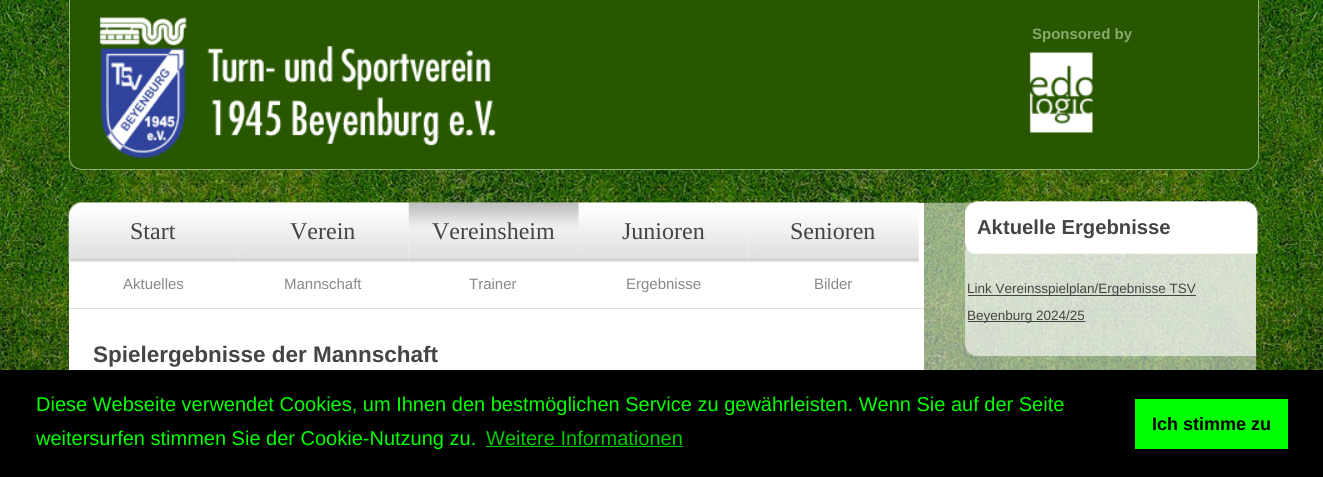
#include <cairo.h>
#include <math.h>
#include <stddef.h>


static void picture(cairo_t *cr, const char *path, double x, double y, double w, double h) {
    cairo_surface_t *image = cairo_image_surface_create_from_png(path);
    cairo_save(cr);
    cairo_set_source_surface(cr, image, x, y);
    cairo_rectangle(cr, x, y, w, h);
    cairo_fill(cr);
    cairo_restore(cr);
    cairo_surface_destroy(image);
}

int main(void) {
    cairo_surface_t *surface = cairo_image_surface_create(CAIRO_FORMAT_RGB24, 1323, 477);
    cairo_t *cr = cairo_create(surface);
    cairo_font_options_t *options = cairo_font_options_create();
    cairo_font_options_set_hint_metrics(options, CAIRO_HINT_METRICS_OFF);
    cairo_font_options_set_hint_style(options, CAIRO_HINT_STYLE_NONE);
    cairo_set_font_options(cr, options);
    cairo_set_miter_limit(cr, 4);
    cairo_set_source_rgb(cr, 1, 1, 1);
    cairo_paint(cr);
    picture(cr, "img1.png", 0, 0, 1323, 370);
    cairo_set_source_rgb(cr, 0.157, 0.341, 0);
    cairo_new_path(cr);
    cairo_move_to(cr, 69.5, -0.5);
    cairo_line_to(cr, 1258.5, -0.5);
    cairo_line_to(cr, 1258.5, 157);
    cairo_curve_to(cr, 1258.5, 164, 1253, 169.5, 1246, 169.5);
    cairo_line_to(cr, 82, 169.5);
    cairo_curve_to(cr, 75, 169.5, 69.5, 164, 69.5, 157);
    cairo_close_path(cr);
    cairo_fill_preserve(cr);
    cairo_set_source_rgb(cr, 0.561, 0.698, 0.478);
    cairo_set_line_width(cr, 1);
    cairo_stroke(cr);
    picture(cr, "img2.png", 99, 17, 397, 142);
    cairo_select_font_face(cr, "Liberation Sans", CAIRO_FONT_SLANT_NORMAL, CAIRO_FONT_WEIGHT_BOLD);
    cairo_set_font_size(cr, 15);
    cairo_set_source_rgb(cr, 0.537, 0.667, 0.431);
    cairo_move_to(cr, 1032, 39);
    cairo_show_text(cr, "Sponsored by");
    picture(cr, "img3.png", 1029, 52, 64, 81);
    picture(cr, "img4.png", 68, 202, 1189, 168);
    cairo_set_source_rgb(cr, 1, 1, 1);
    cairo_rectangle(cr, 69, 203, 855, 167);
    cairo_fill(cr);
    picture(cr, "img5.png", 68, 202, 171, 61);
    cairo_select_font_face(cr, "Liberation Serif", CAIRO_FONT_SLANT_NORMAL, CAIRO_FONT_WEIGHT_NORMAL);
    cairo_set_font_size(cr, 24);
    cairo_set_source_rgb(cr, 0.267, 0.267, 0.267);
    cairo_move_to(cr, 130, 239);
    cairo_show_text(cr, "Start");
    picture(cr, "img6.png", 238, 202, 171, 61);
    cairo_move_to(cr, 290, 239);
    cairo_show_text(cr, "Verein");
    picture(cr, "img7.png", 408, 202, 171, 61);
    cairo_move_to(cr, 432, 239);
    cairo_show_text(cr, "Vereinsheim");
    picture(cr, "img8.png", 578, 202, 171, 61);
    cairo_move_to(cr, 622, 239);
    cairo_show_text(cr, "Junioren");
    picture(cr, "img9.png", 748, 202, 171, 61);
    cairo_move_to(cr, 790, 239);
    cairo_show_text(cr, "Senioren");
    cairo_set_source_rgb(cr, 0.867, 0.867, 0.867);
    cairo_rectangle(cr, 69, 308, 855, 1);
    cairo_fill(cr);
    cairo_select_font_face(cr, "Liberation Sans", CAIRO_FONT_SLANT_NORMAL, CAIRO_FONT_WEIGHT_NORMAL);
    cairo_set_font_size(cr, 15);
    cairo_set_source_rgb(cr, 0.533, 0.533, 0.533);
    cairo_move_to(cr, 123, 289);
    cairo_show_text(cr, "Aktuelles");
    cairo_move_to(cr, 284, 289);
    cairo_show_text(cr, "Mannschaft");
    cairo_move_to(cr, 469, 289);
    cairo_show_text(cr, "Trainer");
    cairo_move_to(cr, 626, 289);
    cairo_show_text(cr, "Ergebnisse");
    cairo_move_to(cr, 814, 289);
    cairo_show_text(cr, "Bilder");
    cairo_select_font_face(cr, "Liberation Sans", CAIRO_FONT_SLANT_NORMAL, CAIRO_FONT_WEIGHT_BOLD);
    cairo_set_font_size(cr, 22.5);
    cairo_set_source_rgb(cr, 0.267, 0.267, 0.267);
    cairo_move_to(cr, 93, 362);
    cairo_show_text(cr, "Spielergebnisse der Mannschaft");
    picture(cr, "img10.png", 965, 253, 292, 104);
    picture(cr, "img11.png", 965, 200, 293, 54);
    cairo_set_font_size(cr, 20.25);
    cairo_move_to(cr, 977, 234);
    cairo_show_text(cr, "Aktuelle Ergebnisse");
    cairo_rectangle(cr, 968, 295, 228, 1);
    cairo_fill(cr);
    cairo_select_font_face(cr, "Liberation Sans", CAIRO_FONT_SLANT_NORMAL, CAIRO_FONT_WEIGHT_NORMAL);
    cairo_set_font_size(cr, 13.5);
    cairo_move_to(cr, 967, 293);
    cairo_show_text(cr, "Link Vereinsspielplan/Ergebnisse TSV");
    cairo_rectangle(cr, 968, 321, 117, 1);
    cairo_fill(cr);
    cairo_move_to(cr, 967, 320);
    cairo_show_text(cr, "Beyenburg 2024/25");
    cairo_set_source_rgb(cr, 0, 0, 0);
    cairo_rectangle(cr, 0, 370, 1323, 107);
    cairo_fill(cr);
    cairo_set_font_size(cr, 20);
    cairo_set_source_rgb(cr, 0, 1, 0);
    cairo_move_to(cr, 36, 411);
    cairo_show_text(cr, "Diese Webseite verwendet Cookies, um Ihnen den bestmöglichen Service zu gewährleisten. Wenn Sie auf der Seite");
    cairo_move_to(cr, 36, 445);
    cairo_show_text(cr, "weitersurfen stimmen Sie der Cookie-Nutzung zu.");
    cairo_set_source_rgb(cr, 0, 0.8, 0);
    cairo_move_to(cr, 486, 445);
    cairo_show_text(cr, "Weitere Informationen");
    cairo_rectangle(cr, 486, 446, 197, 1);
    cairo_fill(cr);
    cairo_set_source_rgb(cr, 0, 1, 0);
    cairo_rectangle(cr, 1135, 399, 153, 50);
    cairo_fill(cr);
    cairo_select_font_face(cr, "Liberation Sans", CAIRO_FONT_SLANT_NORMAL, CAIRO_FONT_WEIGHT_BOLD);
    cairo_set_font_size(cr, 18);
    cairo_set_source_rgb(cr, 0, 0, 0);
    cairo_move_to(cr, 1152, 430);
    cairo_show_text(cr, "Ich stimme zu");
    cairo_surface_write_to_png(surface, "page.png");
    cairo_font_options_destroy(options);
    cairo_destroy(cr);
    cairo_surface_destroy(surface);
    return 0;
}
